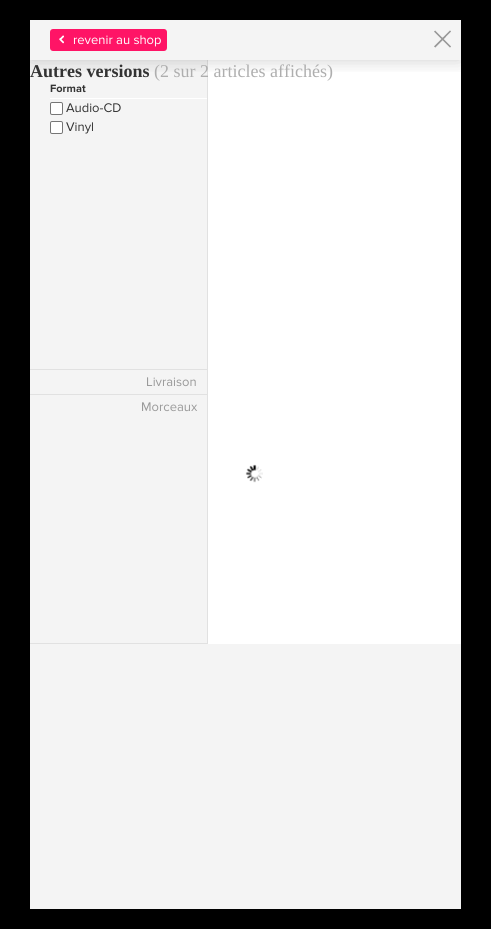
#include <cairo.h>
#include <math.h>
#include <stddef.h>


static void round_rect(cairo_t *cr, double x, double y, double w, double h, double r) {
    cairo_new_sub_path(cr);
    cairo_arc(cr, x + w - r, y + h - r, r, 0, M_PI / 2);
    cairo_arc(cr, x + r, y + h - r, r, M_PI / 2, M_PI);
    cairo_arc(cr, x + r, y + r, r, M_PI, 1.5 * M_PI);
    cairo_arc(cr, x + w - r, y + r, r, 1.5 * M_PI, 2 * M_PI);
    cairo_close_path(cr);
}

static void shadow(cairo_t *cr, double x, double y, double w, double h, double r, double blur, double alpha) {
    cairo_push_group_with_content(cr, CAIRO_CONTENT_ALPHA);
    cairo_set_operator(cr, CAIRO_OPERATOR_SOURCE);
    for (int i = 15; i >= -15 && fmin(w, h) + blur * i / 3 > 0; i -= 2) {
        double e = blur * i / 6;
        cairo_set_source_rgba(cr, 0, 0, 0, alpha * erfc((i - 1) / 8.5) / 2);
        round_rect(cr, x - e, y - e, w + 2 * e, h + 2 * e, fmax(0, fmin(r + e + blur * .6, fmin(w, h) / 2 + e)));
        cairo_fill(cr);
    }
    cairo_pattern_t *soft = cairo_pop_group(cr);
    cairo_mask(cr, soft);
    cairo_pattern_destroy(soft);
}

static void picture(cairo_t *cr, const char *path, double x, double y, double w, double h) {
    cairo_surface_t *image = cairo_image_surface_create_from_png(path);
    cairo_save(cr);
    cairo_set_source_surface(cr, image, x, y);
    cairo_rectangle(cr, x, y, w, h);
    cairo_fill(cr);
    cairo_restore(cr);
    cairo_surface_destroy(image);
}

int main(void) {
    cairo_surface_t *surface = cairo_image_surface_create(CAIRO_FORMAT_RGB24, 491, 929);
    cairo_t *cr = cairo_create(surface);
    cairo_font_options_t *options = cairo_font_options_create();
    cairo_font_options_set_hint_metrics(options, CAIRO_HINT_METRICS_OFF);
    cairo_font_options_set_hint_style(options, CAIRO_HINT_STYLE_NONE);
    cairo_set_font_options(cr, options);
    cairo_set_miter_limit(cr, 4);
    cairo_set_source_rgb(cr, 0.957, 0.957, 0.957);
    cairo_paint(cr);
    cairo_set_source_rgb(cr, 1, 1, 1);
    cairo_rectangle(cr, 208, 60, 253, 584);
    cairo_fill(cr);
    cairo_set_source_rgb(cr, 0.882, 0.882, 0.882);
    cairo_rectangle(cr, 30, 369, 178, 1);
    cairo_fill(cr);
    cairo_rectangle(cr, 207, 60, 1, 334);
    cairo_fill(cr);
    cairo_save(cr);
    cairo_rectangle(cr, 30, 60, 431, 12);
    cairo_clip(cr);
    cairo_set_source_rgb(cr, 0, 0, 0);
    shadow(cr, 30, 20, 431, 40, 0, 9, 0.2);
    cairo_restore(cr);
    cairo_set_source_rgb(cr, 0, 0, 0);
    cairo_rectangle(cr, 0, 0, 30, 929);
    cairo_fill(cr);
    cairo_rectangle(cr, 30, 0, 431, 20);
    cairo_fill(cr);
    cairo_rectangle(cr, 461, 0, 30, 909);
    cairo_fill(cr);
    cairo_set_source_rgb(cr, 1, 0.082, 0.4);
    round_rect(cr, 50, 29, 117, 22, 3);
    cairo_fill(cr);
    picture(cr, "img1.png", 59, 35, 5, 9);
    cairo_select_font_face(cr, "Proxima Nova", CAIRO_FONT_SLANT_NORMAL, CAIRO_FONT_WEIGHT_NORMAL);
    cairo_set_font_size(cr, 13);
    cairo_set_source_rgb(cr, 1, 1, 1);
    cairo_move_to(cr, 73, 44);
    cairo_show_text(cr, "revenir au shop");
    picture(cr, "img2.png", 434, 30, 17, 18);
    cairo_select_font_face(cr, "Liberation Serif", CAIRO_FONT_SLANT_NORMAL, CAIRO_FONT_WEIGHT_BOLD);
    cairo_set_font_size(cr, 18);
    cairo_set_source_rgb(cr, 0.2, 0.2, 0.2);
    cairo_move_to(cr, 30, 77);
    cairo_show_text(cr, "Autres versions");
    cairo_select_font_face(cr, "Liberation Serif", CAIRO_FONT_SLANT_NORMAL, CAIRO_FONT_WEIGHT_NORMAL);
    cairo_set_source_rgb(cr, 0.682, 0.682, 0.682);
    cairo_move_to(cr, 154, 77);
    cairo_show_text(cr, "(2 sur 2 articles affichés)");
    picture(cr, "img3.png", 245, 464, 18, 19);
    cairo_set_source_rgb(cr, 0.882, 0.882, 0.882);
    cairo_rectangle(cr, 30, 643, 178, 1);
    cairo_fill(cr);
    cairo_set_source_rgb(cr, 1, 1, 1);
    cairo_rectangle(cr, 50, 98, 157, 1);
    cairo_fill(cr);
    cairo_select_font_face(cr, "Proxima Nova", CAIRO_FONT_SLANT_NORMAL, CAIRO_FONT_WEIGHT_BOLD);
    cairo_set_font_size(cr, 11);
    cairo_set_source_rgb(cr, 0.2, 0.2, 0.2);
    cairo_move_to(cr, 50, 92);
    cairo_show_text(cr, "Format");
    cairo_set_source_rgb(cr, 1, 1, 1);
    round_rect(cr, 50.5, 102.5, 12, 12, 1.5);
    cairo_fill_preserve(cr);
    cairo_set_source_rgb(cr, 0.463, 0.463, 0.463);
    cairo_set_line_width(cr, 1);
    cairo_stroke(cr);
    cairo_select_font_face(cr, "Proxima Nova", CAIRO_FONT_SLANT_NORMAL, CAIRO_FONT_WEIGHT_NORMAL);
    cairo_set_font_size(cr, 13);
    cairo_set_source_rgb(cr, 0.2, 0.2, 0.2);
    cairo_move_to(cr, 66, 112);
    cairo_show_text(cr, "Audio-CD");
    cairo_set_source_rgb(cr, 1, 1, 1);
    round_rect(cr, 50.5, 121.5, 12, 12, 1.5);
    cairo_fill_preserve(cr);
    cairo_set_source_rgb(cr, 0.463, 0.463, 0.463);
    cairo_stroke(cr);
    cairo_set_source_rgb(cr, 0.2, 0.2, 0.2);
    cairo_move_to(cr, 66, 131);
    cairo_show_text(cr, "Vinyl");
    cairo_set_source_rgb(cr, 0.6, 0.6, 0.6);
    cairo_move_to(cr, 146, 386);
    cairo_show_text(cr, "Livraison");
    cairo_set_source_rgb(cr, 0.882, 0.882, 0.882);
    cairo_rectangle(cr, 30, 394, 178, 1);
    cairo_fill(cr);
    cairo_rectangle(cr, 207, 394, 1, 249);
    cairo_fill(cr);
    cairo_set_source_rgb(cr, 0.6, 0.6, 0.6);
    cairo_move_to(cr, 141, 411);
    cairo_show_text(cr, "Morceaux");
    cairo_set_source_rgb(cr, 0, 0, 0);
    cairo_rectangle(cr, 30, 909, 461, 20);
    cairo_fill(cr);
    cairo_surface_write_to_png(surface, "page.png");
    cairo_font_options_destroy(options);
    cairo_destroy(cr);
    cairo_surface_destroy(surface);
    return 0;
}
